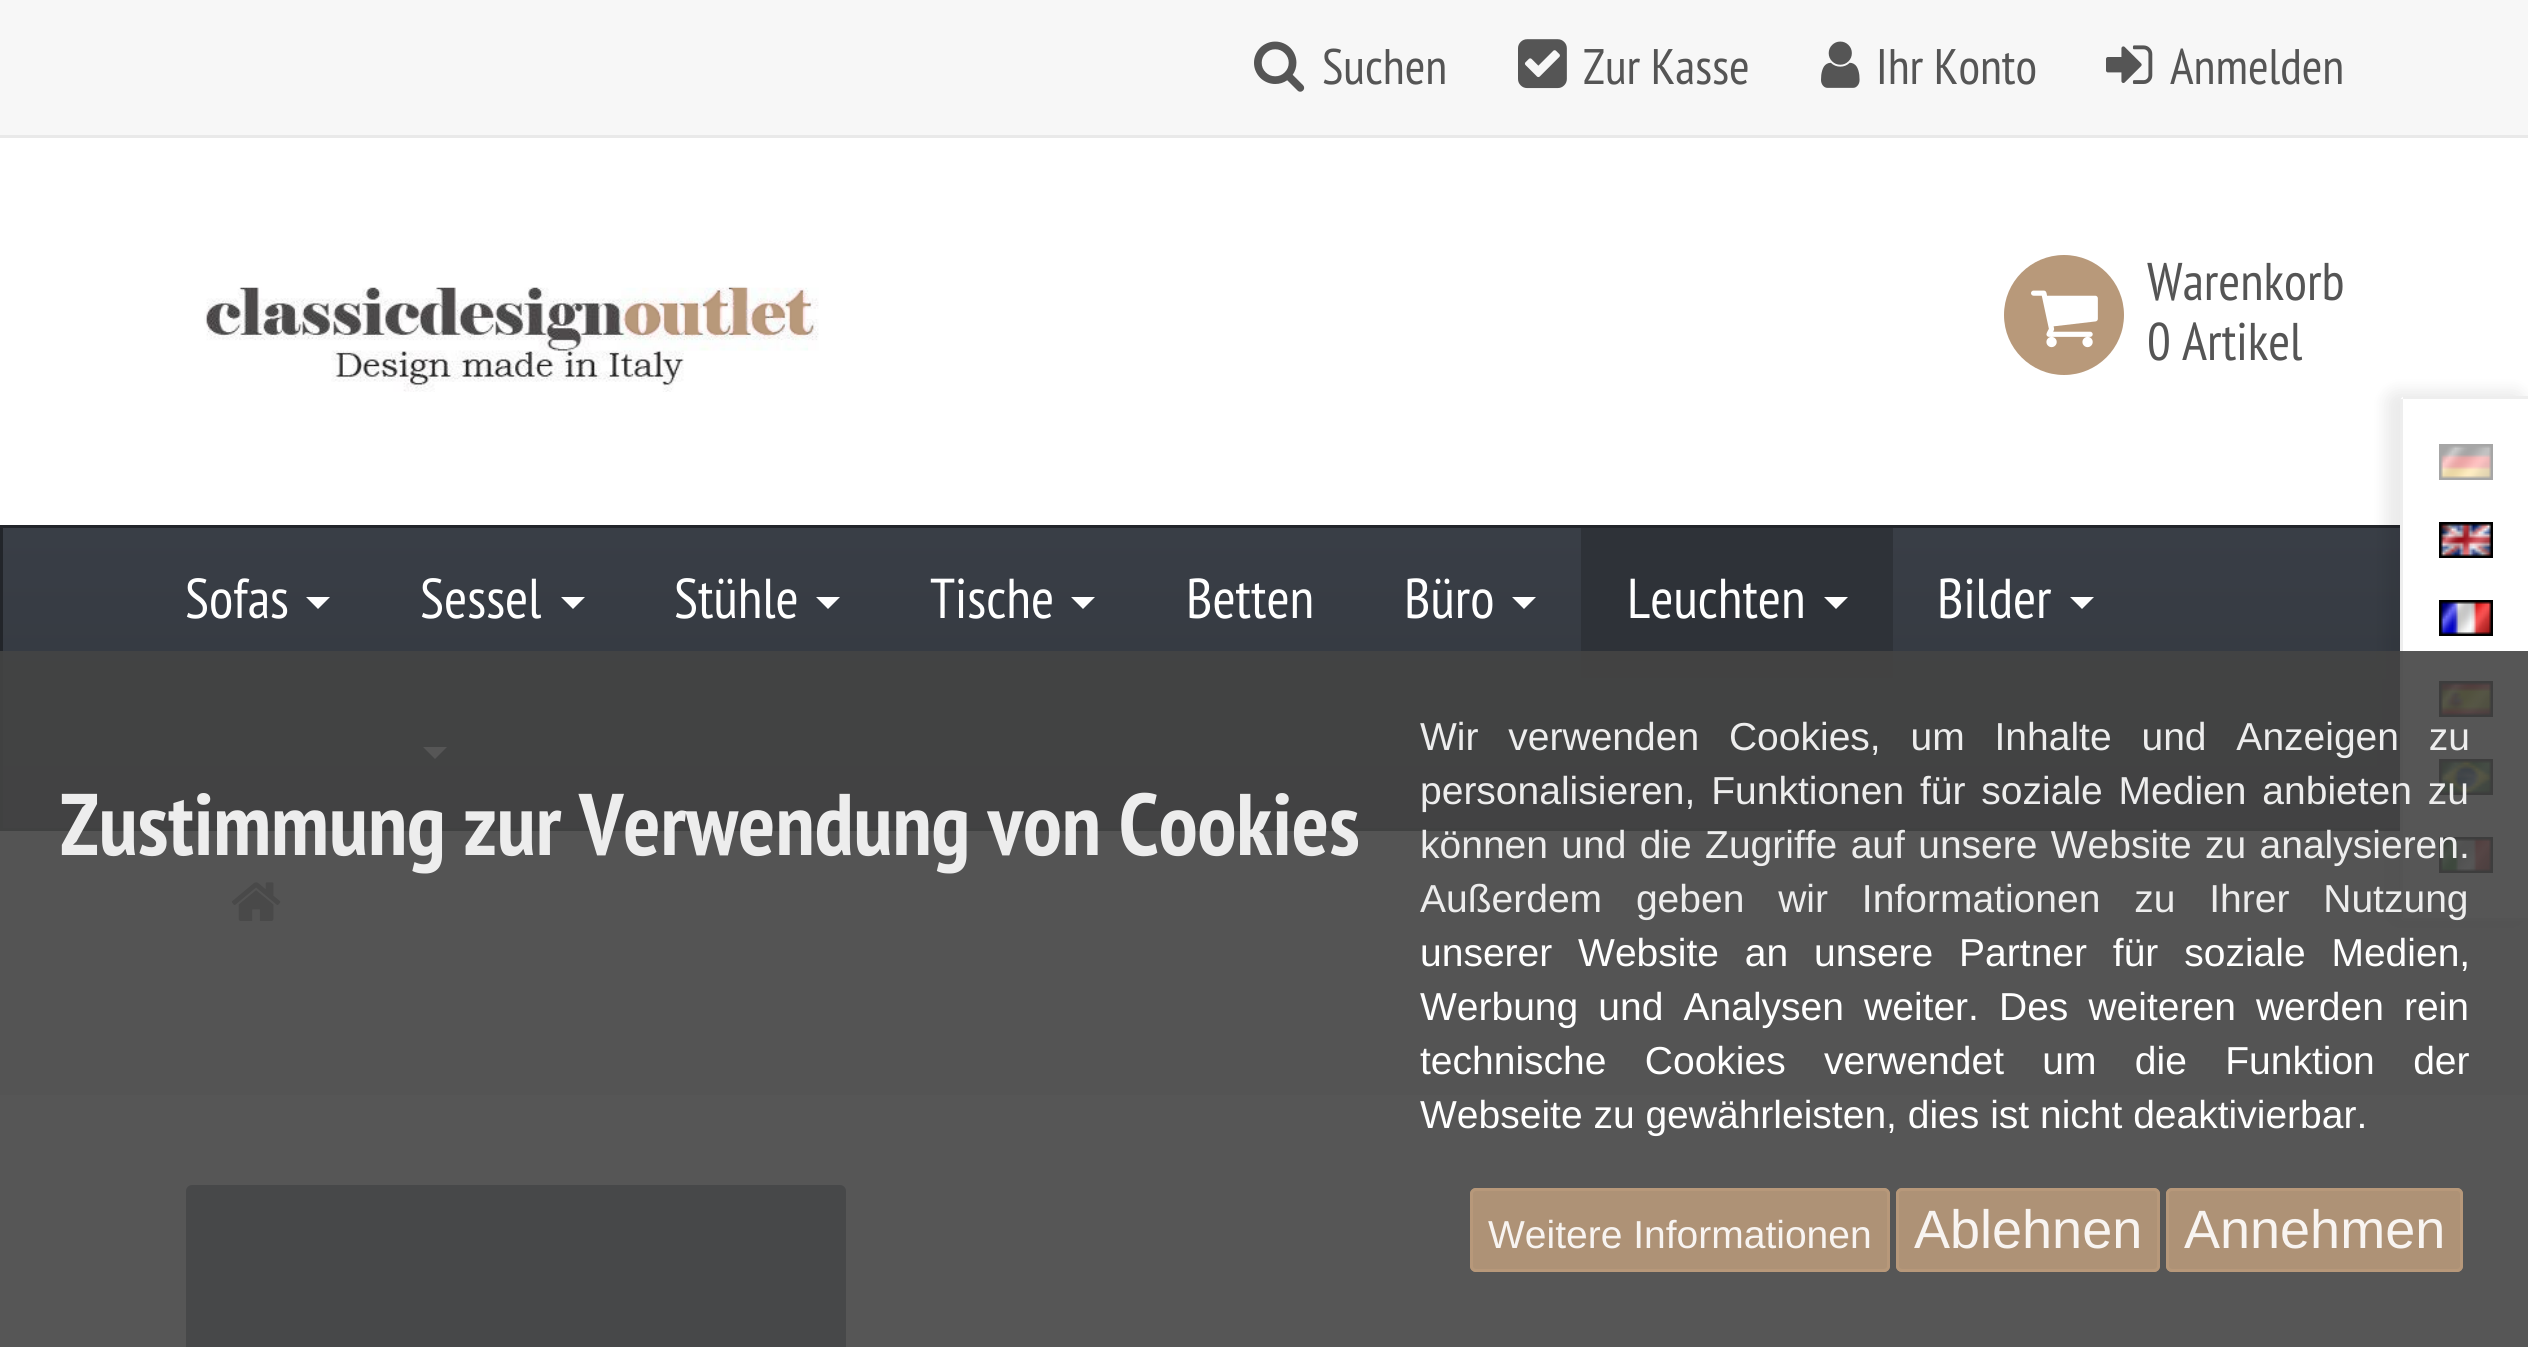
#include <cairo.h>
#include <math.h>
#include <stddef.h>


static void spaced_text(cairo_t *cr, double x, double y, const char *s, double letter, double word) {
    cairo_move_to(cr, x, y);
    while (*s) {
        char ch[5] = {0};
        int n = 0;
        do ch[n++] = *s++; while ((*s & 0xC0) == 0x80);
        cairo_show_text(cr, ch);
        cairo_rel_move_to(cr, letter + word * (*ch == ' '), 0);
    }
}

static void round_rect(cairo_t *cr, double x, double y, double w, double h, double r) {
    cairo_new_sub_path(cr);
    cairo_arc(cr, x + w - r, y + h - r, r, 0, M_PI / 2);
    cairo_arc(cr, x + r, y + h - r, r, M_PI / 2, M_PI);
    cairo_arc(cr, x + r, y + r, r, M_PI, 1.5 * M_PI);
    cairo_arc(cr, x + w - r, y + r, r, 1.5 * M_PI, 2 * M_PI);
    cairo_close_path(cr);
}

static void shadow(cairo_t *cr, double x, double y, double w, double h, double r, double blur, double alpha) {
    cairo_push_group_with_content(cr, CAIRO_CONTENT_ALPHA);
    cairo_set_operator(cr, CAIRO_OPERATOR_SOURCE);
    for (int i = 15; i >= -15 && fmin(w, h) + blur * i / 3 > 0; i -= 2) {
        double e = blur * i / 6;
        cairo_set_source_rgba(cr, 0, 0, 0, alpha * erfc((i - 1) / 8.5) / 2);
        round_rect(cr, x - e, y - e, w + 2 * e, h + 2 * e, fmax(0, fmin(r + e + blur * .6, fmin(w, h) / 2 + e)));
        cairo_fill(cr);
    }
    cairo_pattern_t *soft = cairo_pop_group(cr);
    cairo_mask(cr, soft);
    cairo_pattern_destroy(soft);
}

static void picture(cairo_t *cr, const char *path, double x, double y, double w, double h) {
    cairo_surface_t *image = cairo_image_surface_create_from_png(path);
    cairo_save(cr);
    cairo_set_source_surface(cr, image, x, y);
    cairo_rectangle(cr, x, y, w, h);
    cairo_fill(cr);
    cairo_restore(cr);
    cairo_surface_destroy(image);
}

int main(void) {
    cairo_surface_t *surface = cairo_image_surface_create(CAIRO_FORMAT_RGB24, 2528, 1347);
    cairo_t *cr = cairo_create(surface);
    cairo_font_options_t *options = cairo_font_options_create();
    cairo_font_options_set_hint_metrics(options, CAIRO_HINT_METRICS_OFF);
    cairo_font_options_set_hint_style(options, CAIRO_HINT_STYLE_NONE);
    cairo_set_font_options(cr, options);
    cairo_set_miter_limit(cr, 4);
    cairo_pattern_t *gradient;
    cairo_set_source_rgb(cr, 1, 1, 1);
    cairo_paint(cr);
    cairo_set_source_rgb(cr, 0.965, 0.965, 0.965);
    cairo_rectangle(cr, 0, 0, 2528, 135);
    cairo_fill(cr);
    cairo_set_source_rgb(cr, 0.914, 0.914, 0.914);
    cairo_rectangle(cr, 0, 135, 2528, 3);
    cairo_fill(cr);
    picture(cr, "img1.png", 1254, 41, 51, 51);
    cairo_select_font_face(cr, "PT Sans Narrow", CAIRO_FONT_SLANT_NORMAL, CAIRO_FONT_WEIGHT_NORMAL);
    cairo_set_font_size(cr, 48);
    cairo_set_source_rgb(cr, 0.333, 0.333, 0.333);
    cairo_move_to(cr, 1322, 84);
    cairo_show_text(cr, "Suchen");
    picture(cr, "img2.png", 1518, 39, 49, 50);
    cairo_move_to(cr, 1583, 84);
    cairo_show_text(cr, "Zur Kasse");
    picture(cr, "img3.png", 1821, 41, 39, 47);
    cairo_move_to(cr, 1876, 84);
    cairo_show_text(cr, "Ihr Konto");
    picture(cr, "img4.png", 2106, 45, 47, 39);
    cairo_move_to(cr, 2170, 84);
    cairo_show_text(cr, "Anmelden");
    picture(cr, "img5.png", 204, 286, 615, 106);
    cairo_set_source_rgb(cr, 0.722, 0.6, 0.478);
    cairo_arc(cr, 2064, 315, 60, 0, 2 * M_PI);
    cairo_fill(cr);
    picture(cr, "img6.png", 2031, 290, 67, 58);
    cairo_set_font_size(cr, 51);
    cairo_set_source_rgb(cr, 0.333, 0.333, 0.333);
    cairo_move_to(cr, 2147, 300);
    cairo_show_text(cr, "Warenkorb");
    cairo_move_to(cr, 2147, 360);
    cairo_show_text(cr, "0 Artikel");
    gradient = cairo_pattern_create_linear(1265, 528, 1265, 828);
    cairo_pattern_add_color_stop_rgba(gradient, 0, 0.224, 0.243, 0.275, 1);
    cairo_pattern_add_color_stop_rgba(gradient, 1, 0.196, 0.216, 0.243, 1);
    cairo_set_source(cr, gradient);
    cairo_pattern_destroy(gradient);
    cairo_rectangle(cr, 3, 528, 2397, 300);
    cairo_fill(cr);
    cairo_rectangle(cr, 1.5, 526.5, 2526, 303);
    cairo_set_source_rgb(cr, 0.133, 0.145, 0.165);
    cairo_set_line_width(cr, 3);
    cairo_stroke(cr);
    cairo_set_font_size(cr, 54);
    cairo_set_source_rgb(cr, 1, 1, 1);
    cairo_move_to(cr, 185, 618);
    cairo_show_text(cr, "Sofas");
    cairo_new_path(cr);
    cairo_move_to(cr, 306, 597);
    cairo_line_to(cr, 330, 597);
    cairo_line_to(cr, 318, 609);
    cairo_close_path(cr);
    cairo_fill(cr);
    cairo_move_to(cr, 420, 618);
    cairo_show_text(cr, "Sessel");
    cairo_new_path(cr);
    cairo_move_to(cr, 561, 597);
    cairo_line_to(cr, 585, 597);
    cairo_line_to(cr, 573, 609);
    cairo_close_path(cr);
    cairo_fill(cr);
    cairo_move_to(cr, 674, 618);
    cairo_show_text(cr, "Stühle");
    cairo_new_path(cr);
    cairo_move_to(cr, 816, 597);
    cairo_line_to(cr, 840, 597);
    cairo_line_to(cr, 828, 609);
    cairo_close_path(cr);
    cairo_fill(cr);
    cairo_move_to(cr, 930, 618);
    cairo_show_text(cr, "Tische");
    cairo_new_path(cr);
    cairo_move_to(cr, 1071, 597);
    cairo_line_to(cr, 1095, 597);
    cairo_line_to(cr, 1083, 609);
    cairo_close_path(cr);
    cairo_fill(cr);
    cairo_move_to(cr, 1186, 618);
    cairo_show_text(cr, "Betten");
    cairo_move_to(cr, 1404, 618);
    cairo_show_text(cr, "Büro");
    cairo_new_path(cr);
    cairo_move_to(cr, 1512, 597);
    cairo_line_to(cr, 1536, 597);
    cairo_line_to(cr, 1524, 609);
    cairo_close_path(cr);
    cairo_fill(cr);
    cairo_set_source_rgb(cr, 0.18, 0.196, 0.22);
    cairo_rectangle(cr, 1581, 528, 312, 150);
    cairo_fill(cr);
    cairo_set_source_rgb(cr, 1, 1, 1);
    cairo_move_to(cr, 1627, 618);
    cairo_show_text(cr, "Leuchten");
    cairo_new_path(cr);
    cairo_move_to(cr, 1824, 597);
    cairo_line_to(cr, 1848, 597);
    cairo_line_to(cr, 1836, 609);
    cairo_close_path(cr);
    cairo_fill(cr);
    cairo_move_to(cr, 1937, 618);
    cairo_show_text(cr, "Bilder");
    cairo_new_path(cr);
    cairo_move_to(cr, 2070, 597);
    cairo_line_to(cr, 2094, 597);
    cairo_line_to(cr, 2082, 609);
    cairo_close_path(cr);
    cairo_fill(cr);
    cairo_new_path(cr);
    cairo_move_to(cr, 423, 747);
    cairo_line_to(cr, 447, 747);
    cairo_line_to(cr, 435, 759);
    cairo_close_path(cr);
    cairo_fill(cr);
    cairo_set_source_rgb(cr, 0.933, 0.933, 0.933);
    cairo_rectangle(cr, 0, 831, 2528, 264);
    cairo_fill(cr);
    cairo_set_source_rgb(cr, 0, 0, 0);
    shadow(cr, 2385, 390, 141, 537, 12, 7.5, 0.08);
    cairo_set_source_rgb(cr, 1, 1, 1);
    cairo_new_path(cr);
    cairo_move_to(cr, 2406, 396);
    cairo_line_to(cr, 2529, 396);
    cairo_line_to(cr, 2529, 921);
    cairo_line_to(cr, 2406, 921);
    cairo_curve_to(cr, 2402.5, 921, 2400, 918.5, 2400, 915);
    cairo_line_to(cr, 2400, 402);
    cairo_curve_to(cr, 2400, 398.5, 2402.5, 396, 2406, 396);
    cairo_close_path(cr);
    cairo_fill(cr);
    cairo_set_source_rgb(cr, 0.933, 0.933, 0.933);
    cairo_rectangle(cr, 2403, 396, 125, 3);
    cairo_fill(cr);
    cairo_rectangle(cr, 2403, 918, 125, 3);
    cairo_fill(cr);
    cairo_rectangle(cr, 2400, 399, 3, 519);
    cairo_fill(cr);
    picture(cr, "img7.png", 2439, 444, 54, 36);
    picture(cr, "img8.png", 2439, 522, 54, 36);
    picture(cr, "img9.png", 2439, 600, 54, 36);
    picture(cr, "img10.png", 2439, 681, 54, 36);
    picture(cr, "img11.png", 2439, 759, 54, 36);
    picture(cr, "img12.png", 2439, 837, 54, 36);
    picture(cr, "img13.png", 231, 882, 50, 39);
    cairo_set_source_rgb(cr, 0.404, 0.439, 0.494);
    round_rect(cr, 186, 1185, 660, 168, 6);
    cairo_fill(cr);
    cairo_set_source_rgba(cr, 0.267, 0.267, 0.267, 0.9);
    cairo_rectangle(cr, 0, 651, 2528, 696);
    cairo_fill(cr);
    cairo_select_font_face(cr, "PT Sans Narrow", CAIRO_FONT_SLANT_NORMAL, CAIRO_FONT_WEIGHT_BOLD);
    cairo_set_font_size(cr, 84);
    cairo_set_source_rgb(cr, 0.929, 0.929, 0.929);
    cairo_move_to(cr, 60, 855);
    cairo_show_text(cr, "Zustimmung zur Verwendung von Cookies");
    cairo_select_font_face(cr, "Liberation Sans", CAIRO_FONT_SLANT_NORMAL, CAIRO_FONT_WEIGHT_NORMAL);
    cairo_set_font_size(cr, 39);
    spaced_text(cr, 1420, 750, "Wir verwenden Cookies, um Inhalte und Anzeigen zu", 0, 19);
    spaced_text(cr, 1420, 804, "personalisieren, Funktionen für soziale Medien anbieten zu", 0, 5);
    spaced_text(cr, 1420, 858, "können und die Zugriffe auf unsere Website zu analysieren.", 0, 2.5);
    spaced_text(cr, 1420, 912, "Außerdem geben wir Informationen zu Ihrer Nutzung", 0, 23);
    cairo_set_source_rgb(cr, 1, 1, 1);
    spaced_text(cr, 1420, 966, "unserer Website an unsere Partner für soziale Medien,", 0, 15);
    spaced_text(cr, 1420, 1020, "Werbung und Analysen weiter. Des weiteren werden rein", 0, 9.25);
    spaced_text(cr, 1420, 1074, "technische Cookies verwendet um die Funktion der", 0, 27.5);
    cairo_move_to(cr, 1420, 1128);
    cairo_show_text(cr, "Webseite zu gewährleisten, dies ist nicht deaktivierbar.");
    cairo_set_source_rgba(cr, 0.722, 0.6, 0.478, 0.9);
    round_rect(cr, 1470, 1188, 420, 84, 6);
    cairo_fill(cr);
    round_rect(cr, 1471.5, 1189.5, 417, 81, 4.5);
    cairo_stroke(cr);
    cairo_set_source_rgb(cr, 0.969, 0.957, 0.945);
    cairo_move_to(cr, 1488, 1248);
    cairo_show_text(cr, "Weitere Informationen");
    cairo_set_source_rgba(cr, 0.722, 0.6, 0.478, 0.9);
    round_rect(cr, 1896, 1188, 264, 84, 6);
    cairo_fill(cr);
    round_rect(cr, 1897.5, 1189.5, 261, 81, 4.5);
    cairo_stroke(cr);
    cairo_set_font_size(cr, 54);
    cairo_set_source_rgb(cr, 0.969, 0.957, 0.945);
    cairo_move_to(cr, 1914, 1248);
    cairo_show_text(cr, "Ablehnen");
    cairo_set_source_rgba(cr, 0.722, 0.6, 0.478, 0.9);
    round_rect(cr, 2166, 1188, 297, 84, 6);
    cairo_fill(cr);
    round_rect(cr, 2167.5, 1189.5, 294, 81, 4.5);
    cairo_stroke(cr);
    cairo_set_source_rgb(cr, 0.969, 0.957, 0.945);
    cairo_move_to(cr, 2184, 1248);
    cairo_show_text(cr, "Annehmen");
    cairo_surface_write_to_png(surface, "page.png");
    cairo_font_options_destroy(options);
    cairo_destroy(cr);
    cairo_surface_destroy(surface);
    return 0;
}
